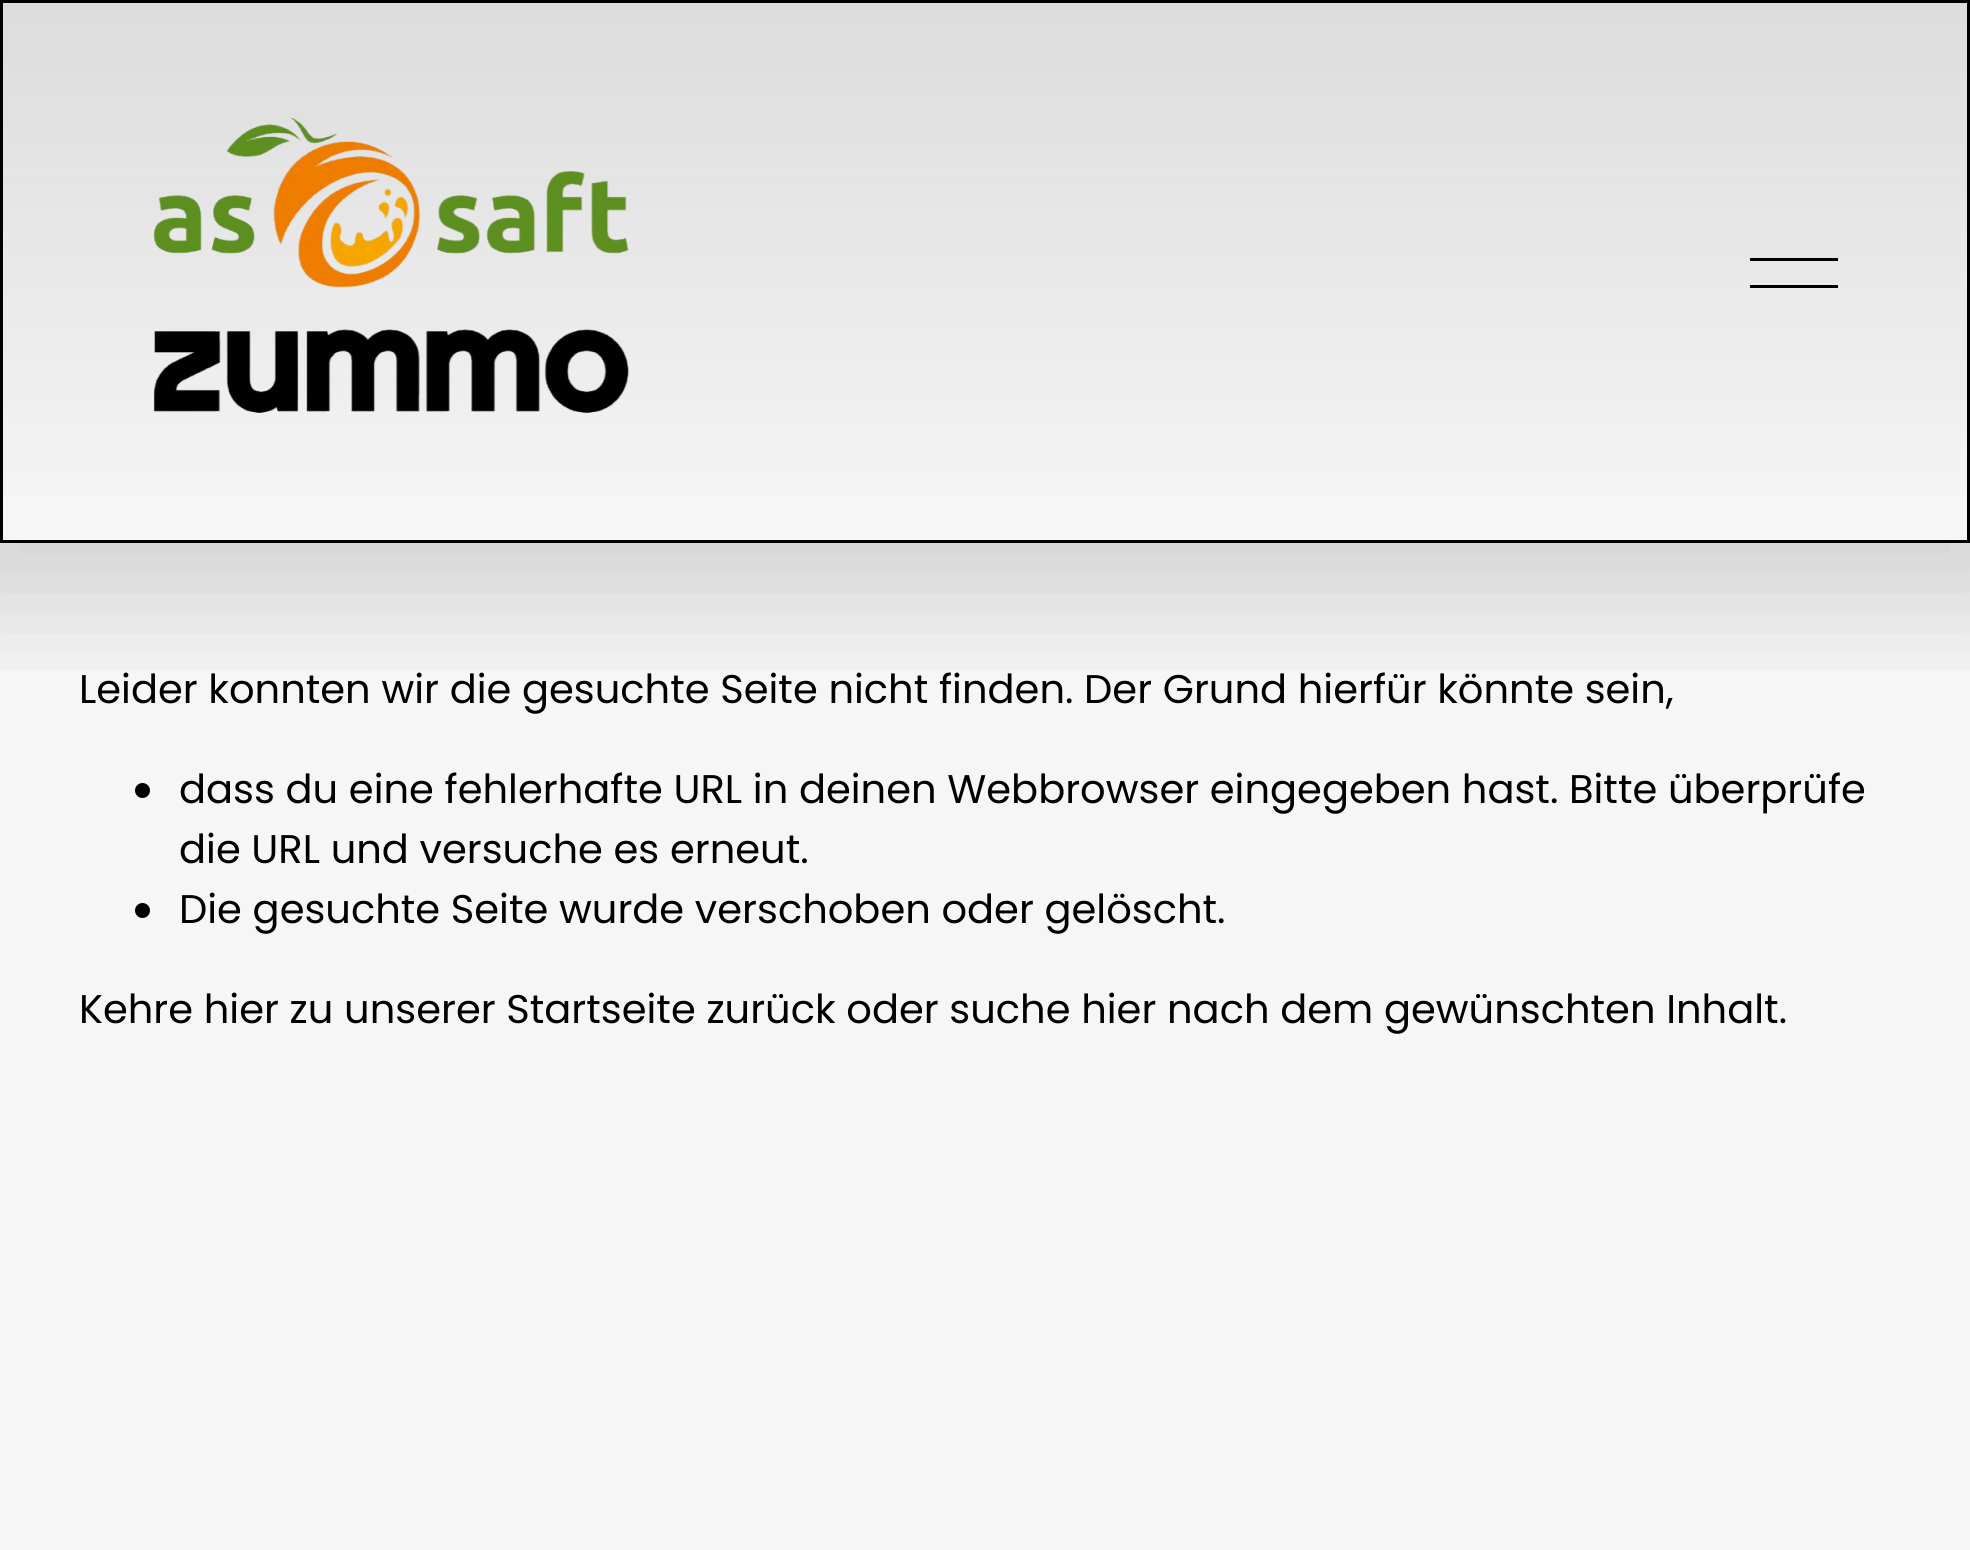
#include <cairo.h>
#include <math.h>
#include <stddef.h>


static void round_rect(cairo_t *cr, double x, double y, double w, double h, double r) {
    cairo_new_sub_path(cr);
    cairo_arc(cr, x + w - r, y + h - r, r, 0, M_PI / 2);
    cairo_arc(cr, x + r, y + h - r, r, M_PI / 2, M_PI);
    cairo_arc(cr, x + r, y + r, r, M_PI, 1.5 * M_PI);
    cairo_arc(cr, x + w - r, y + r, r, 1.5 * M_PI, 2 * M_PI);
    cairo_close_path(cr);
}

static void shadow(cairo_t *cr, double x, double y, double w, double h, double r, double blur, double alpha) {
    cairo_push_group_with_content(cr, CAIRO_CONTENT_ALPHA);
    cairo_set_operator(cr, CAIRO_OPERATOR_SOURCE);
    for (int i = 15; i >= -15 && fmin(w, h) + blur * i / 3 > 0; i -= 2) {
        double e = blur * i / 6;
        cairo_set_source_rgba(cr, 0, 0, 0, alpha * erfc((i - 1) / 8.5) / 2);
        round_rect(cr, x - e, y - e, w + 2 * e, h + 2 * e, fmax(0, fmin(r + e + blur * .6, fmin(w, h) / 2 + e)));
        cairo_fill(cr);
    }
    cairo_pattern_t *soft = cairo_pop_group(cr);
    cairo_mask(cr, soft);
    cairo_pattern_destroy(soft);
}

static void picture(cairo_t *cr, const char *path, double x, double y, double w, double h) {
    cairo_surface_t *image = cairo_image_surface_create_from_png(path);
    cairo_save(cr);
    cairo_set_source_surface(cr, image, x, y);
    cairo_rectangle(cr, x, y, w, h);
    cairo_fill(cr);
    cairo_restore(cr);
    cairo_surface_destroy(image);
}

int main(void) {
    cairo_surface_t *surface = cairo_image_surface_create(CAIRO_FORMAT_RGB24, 1970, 1550);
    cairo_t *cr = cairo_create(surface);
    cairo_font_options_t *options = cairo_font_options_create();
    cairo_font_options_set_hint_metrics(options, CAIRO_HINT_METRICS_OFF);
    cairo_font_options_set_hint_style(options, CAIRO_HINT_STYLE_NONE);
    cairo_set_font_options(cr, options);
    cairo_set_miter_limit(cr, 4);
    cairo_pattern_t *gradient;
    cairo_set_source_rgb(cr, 0.961, 0.961, 0.961);
    cairo_paint(cr);
    cairo_set_source_rgb(cr, 0, 0, 0);
    cairo_arc(cr, 142.5, 790.5, 7.5, 0, 2 * M_PI);
    cairo_fill(cr);
    cairo_save(cr);
    cairo_rectangle(cr, 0, 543, 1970, 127);
    cairo_clip(cr);
    cairo_set_source_rgb(cr, 0, 0, 0);
    shadow(cr, -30, 0, 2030, 603, 0, 60, 0.15);
    cairo_restore(cr);
    gradient = cairo_pattern_create_linear(985, 0, 985, 543);
    cairo_pattern_add_color_stop_rgba(gradient, 0, 0.851, 0.851, 0.851, 0.9);
    cairo_pattern_add_color_stop_rgba(gradient, 1, 0.851, 0.851, 0.851, 0);
    cairo_set_source(cr, gradient);
    cairo_pattern_destroy(gradient);
    cairo_rectangle(cr, 3, 3, 1964, 492);
    cairo_fill(cr);
    cairo_rectangle(cr, 1.5, 1.5, 1967, 540);
    cairo_set_source_rgb(cr, 0, 0, 0);
    cairo_set_line_width(cr, 3);
    cairo_stroke(cr);
    picture(cr, "img1.png", 153, 118, 476, 295);
    cairo_rectangle(cr, 1750, 258, 88, 3);
    cairo_fill(cr);
    cairo_rectangle(cr, 1750, 285, 88, 3);
    cairo_fill(cr);
    cairo_select_font_face(cr, "Poppins", CAIRO_FONT_SLANT_NORMAL, CAIRO_FONT_WEIGHT_NORMAL);
    cairo_set_font_size(cr, 40);
    cairo_move_to(cr, 79, 703);
    cairo_show_text(cr, "Leider konnten wir die gesuchte Seite nicht finden. Der Grund hierfür könnte sein,");
    cairo_move_to(cr, 179, 803);
    cairo_show_text(cr, "dass du eine fehlerhafte URL in deinen Webbrowser eingegeben hast. Bitte überprüfe");
    cairo_move_to(cr, 179, 863);
    cairo_show_text(cr, "die URL und versuche es erneut.");
    cairo_new_path(cr);
    cairo_arc(cr, 142.5, 910.5, 7.5, 0, 2 * M_PI);
    cairo_fill(cr);
    cairo_move_to(cr, 179, 923);
    cairo_show_text(cr, "Die gesuchte Seite wurde verschoben oder gelöscht.");
    cairo_move_to(cr, 79, 1023);
    cairo_show_text(cr, "Kehre hier zu unserer Startseite zurück oder suche hier nach dem gewünschten Inhalt.");
    cairo_surface_write_to_png(surface, "page.png");
    cairo_font_options_destroy(options);
    cairo_destroy(cr);
    cairo_surface_destroy(surface);
    return 0;
}
